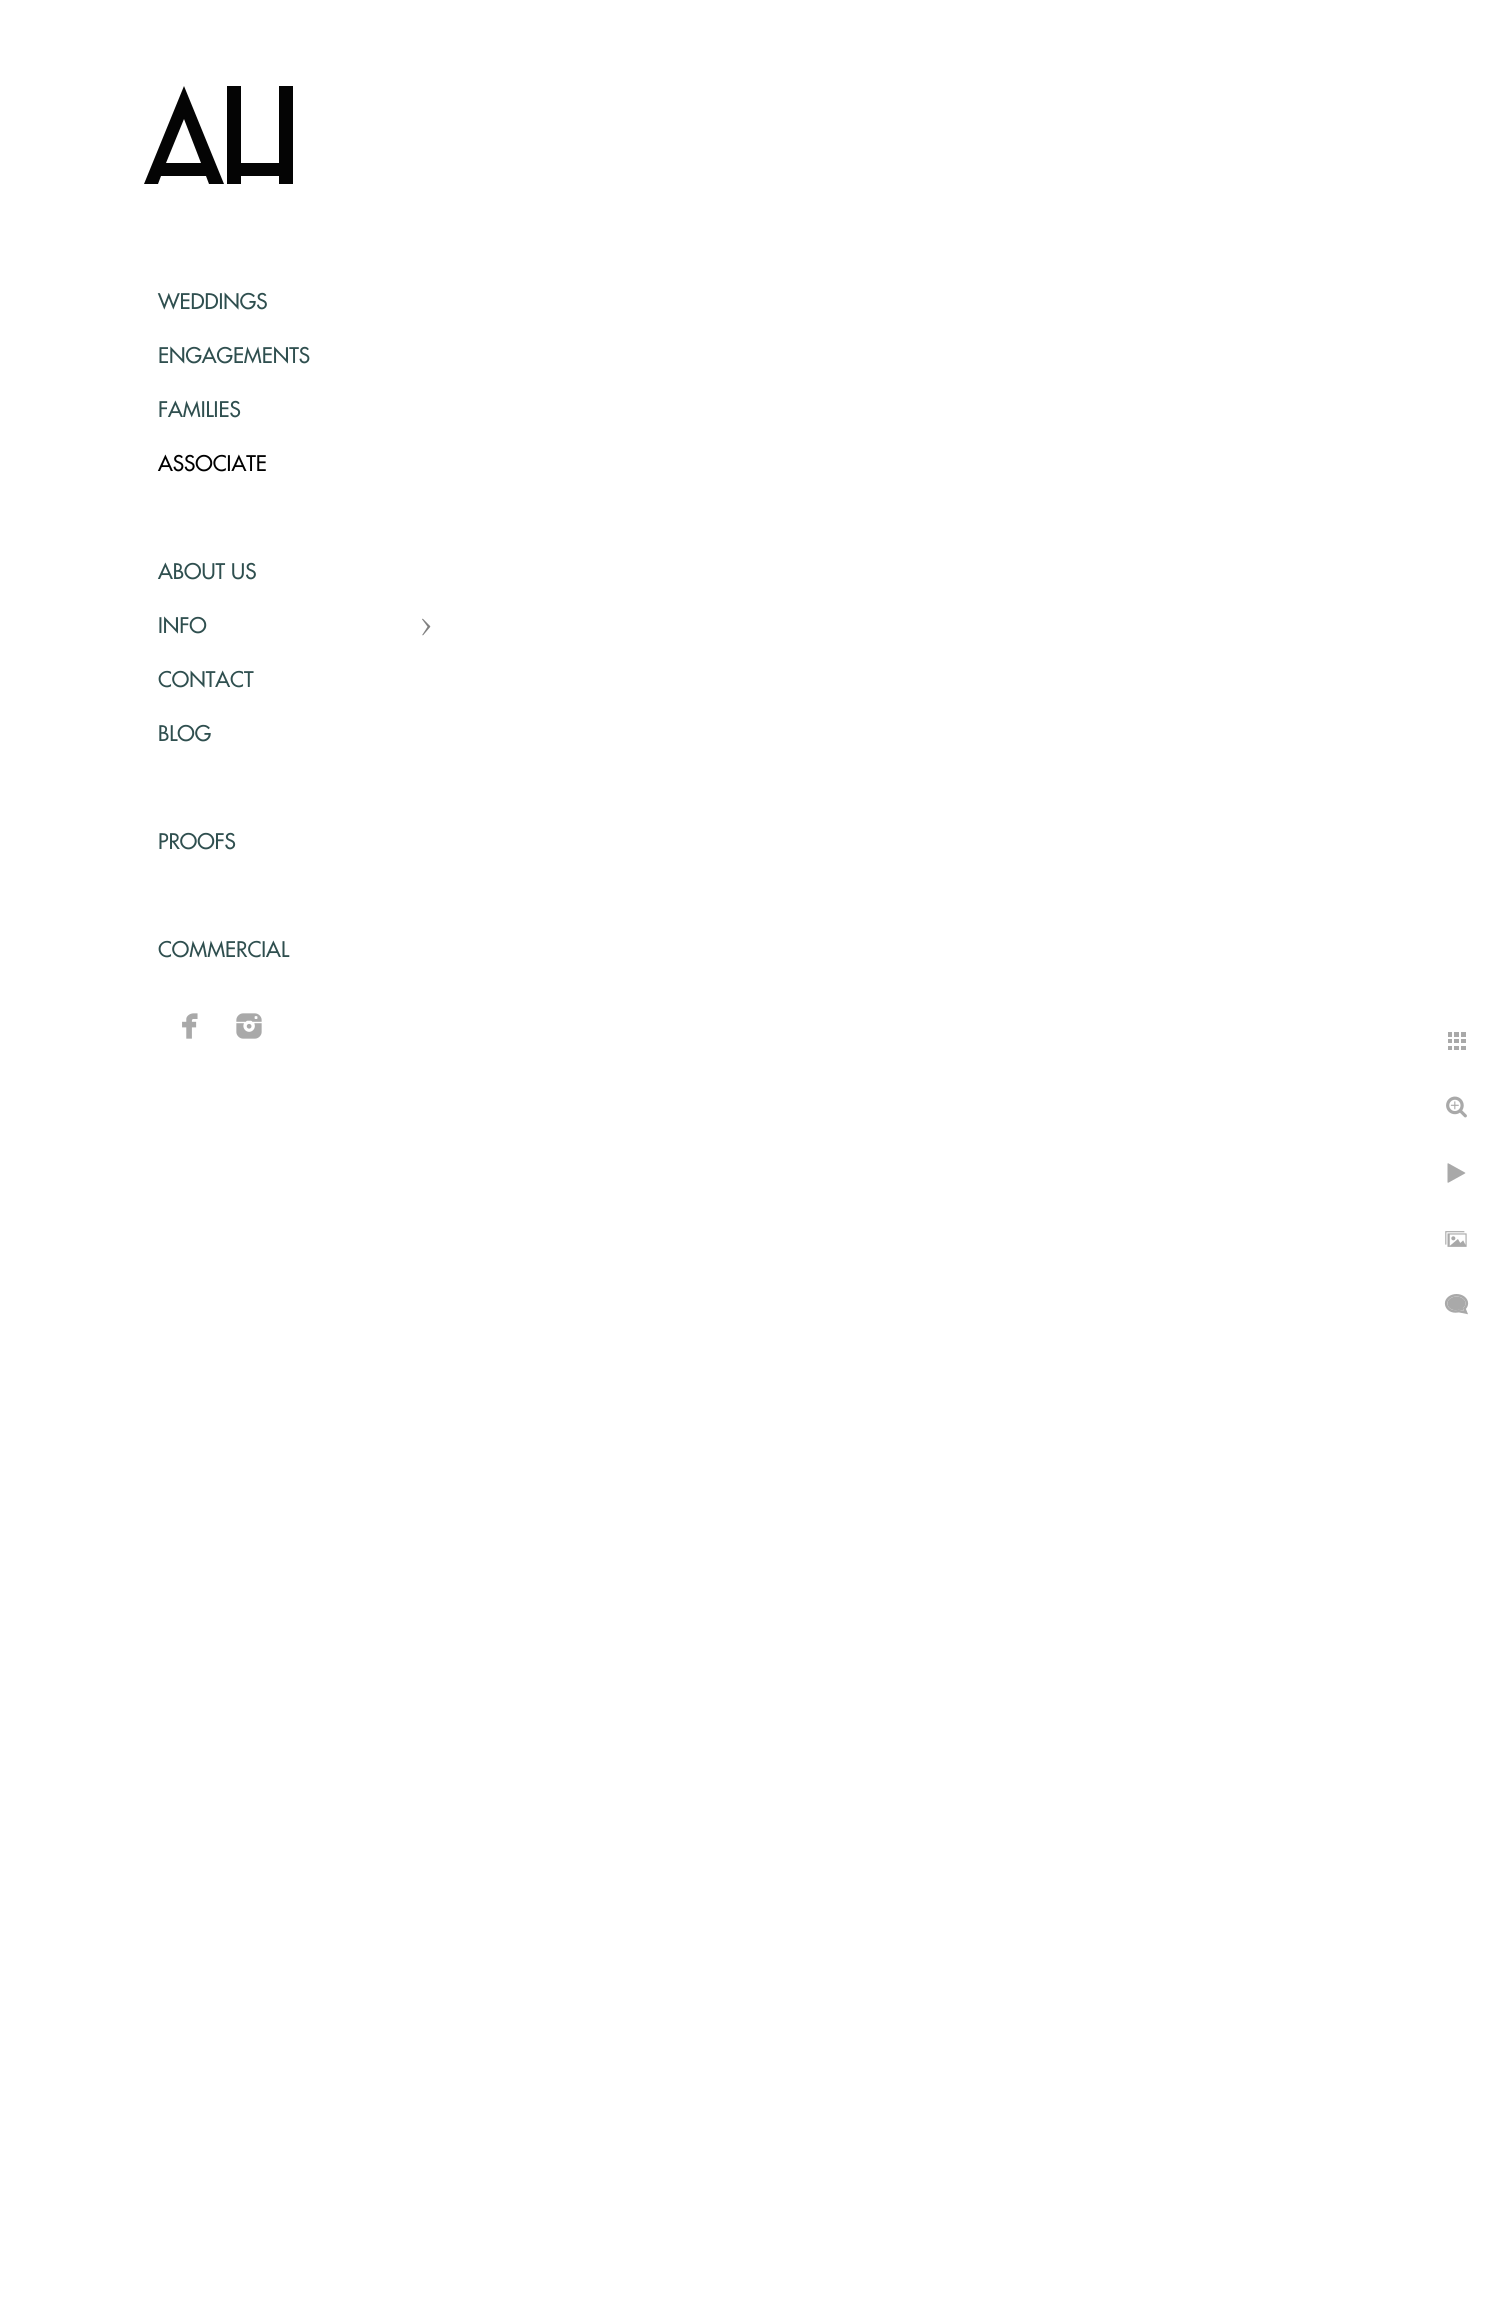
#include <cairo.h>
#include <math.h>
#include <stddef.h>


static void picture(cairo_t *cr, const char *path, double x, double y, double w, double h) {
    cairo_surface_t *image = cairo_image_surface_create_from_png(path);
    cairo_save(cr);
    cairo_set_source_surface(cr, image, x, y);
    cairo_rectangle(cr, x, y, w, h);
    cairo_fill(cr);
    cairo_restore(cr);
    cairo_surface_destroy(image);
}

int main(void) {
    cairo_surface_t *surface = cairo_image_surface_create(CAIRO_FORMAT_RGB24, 1496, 2316);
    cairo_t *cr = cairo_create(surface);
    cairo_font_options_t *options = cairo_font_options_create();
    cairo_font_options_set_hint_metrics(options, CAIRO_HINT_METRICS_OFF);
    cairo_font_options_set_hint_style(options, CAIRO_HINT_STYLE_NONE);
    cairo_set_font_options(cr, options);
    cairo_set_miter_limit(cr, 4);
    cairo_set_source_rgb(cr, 1, 1, 1);
    cairo_paint(cr);
    cairo_set_source_rgb(cr, 0.016, 0.016, 0.016);
    cairo_new_path(cr);
    cairo_move_to(cr, 144, 184);
    cairo_line_to(cr, 184, 86);
    cairo_line_to(cr, 224, 184);
    cairo_line_to(cr, 209, 184);
    cairo_line_to(cr, 206, 176);
    cairo_line_to(cr, 161, 176);
    cairo_line_to(cr, 158, 184);
    cairo_close_path(cr);
    cairo_fill(cr);
    cairo_new_path(cr);
    cairo_move_to(cr, 227, 86);
    cairo_line_to(cr, 241, 86);
    cairo_line_to(cr, 241, 163);
    cairo_line_to(cr, 279, 163);
    cairo_line_to(cr, 279, 86);
    cairo_line_to(cr, 293, 86);
    cairo_line_to(cr, 293, 184);
    cairo_line_to(cr, 279, 184);
    cairo_line_to(cr, 279, 176);
    cairo_line_to(cr, 241, 176);
    cairo_line_to(cr, 241, 184);
    cairo_line_to(cr, 227, 184);
    cairo_close_path(cr);
    cairo_fill(cr);
    cairo_set_source_rgb(cr, 1, 1, 1);
    cairo_new_path(cr);
    cairo_move_to(cr, 184, 119);
    cairo_line_to(cr, 201, 163);
    cairo_line_to(cr, 166, 163);
    cairo_close_path(cr);
    cairo_fill(cr);
    cairo_select_font_face(cr, "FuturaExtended", CAIRO_FONT_SLANT_NORMAL, CAIRO_FONT_WEIGHT_NORMAL);
    cairo_set_font_size(cr, 21);
    cairo_set_source_rgb(cr, 0.184, 0.31, 0.31);
    cairo_move_to(cr, 158, 309);
    cairo_show_text(cr, "WEDDINGS");
    cairo_move_to(cr, 158, 363);
    cairo_show_text(cr, "ENGAGEMENTS");
    cairo_move_to(cr, 158, 417);
    cairo_show_text(cr, "FAMILIES");
    cairo_set_source_rgb(cr, 0, 0, 0);
    cairo_move_to(cr, 158, 471);
    cairo_show_text(cr, "ASSOCIATE");
    cairo_set_source_rgb(cr, 0.184, 0.31, 0.31);
    cairo_move_to(cr, 158, 579);
    cairo_show_text(cr, "ABOUT US");
    cairo_move_to(cr, 158, 633);
    cairo_show_text(cr, "INFO");
    picture(cr, "img1.png", 422, 618, 9, 18);
    cairo_move_to(cr, 158, 687);
    cairo_show_text(cr, "CONTACT");
    cairo_move_to(cr, 158, 741);
    cairo_show_text(cr, "BLOG");
    cairo_move_to(cr, 158, 849);
    cairo_show_text(cr, "PROOFS");
    cairo_move_to(cr, 158, 957);
    cairo_show_text(cr, "COMMERCIAL");
    picture(cr, "img2.png", 182, 1013, 16, 26);
    picture(cr, "img3.png", 236, 1013, 26, 26);
    picture(cr, "img4.png", 1448, 1032, 18, 18);
    picture(cr, "img5.png", 1446, 1096, 21, 22);
    picture(cr, "img6.png", 1447, 1163, 19, 20);
    picture(cr, "img7.png", 1445, 1231, 22, 16);
    picture(cr, "img8.png", 1444, 1294, 25, 21);
    cairo_surface_write_to_png(surface, "page.png");
    cairo_font_options_destroy(options);
    cairo_destroy(cr);
    cairo_surface_destroy(surface);
    return 0;
}
